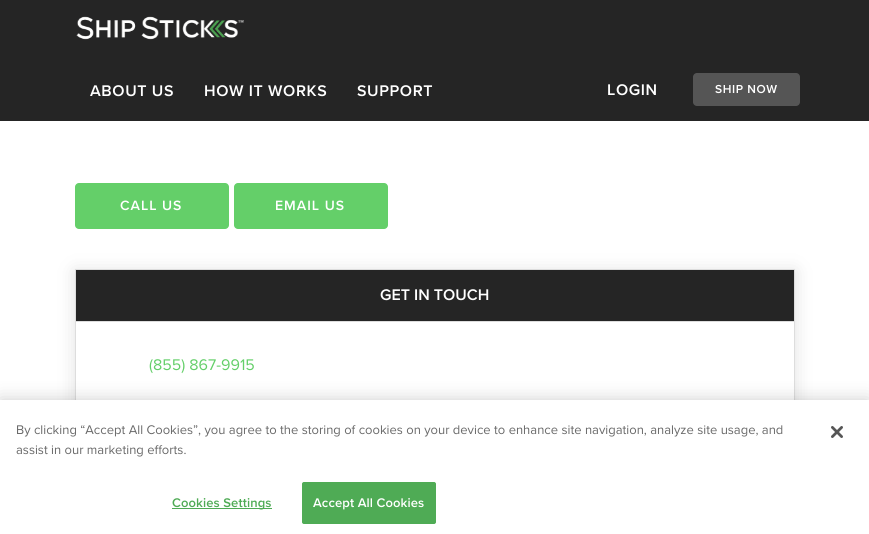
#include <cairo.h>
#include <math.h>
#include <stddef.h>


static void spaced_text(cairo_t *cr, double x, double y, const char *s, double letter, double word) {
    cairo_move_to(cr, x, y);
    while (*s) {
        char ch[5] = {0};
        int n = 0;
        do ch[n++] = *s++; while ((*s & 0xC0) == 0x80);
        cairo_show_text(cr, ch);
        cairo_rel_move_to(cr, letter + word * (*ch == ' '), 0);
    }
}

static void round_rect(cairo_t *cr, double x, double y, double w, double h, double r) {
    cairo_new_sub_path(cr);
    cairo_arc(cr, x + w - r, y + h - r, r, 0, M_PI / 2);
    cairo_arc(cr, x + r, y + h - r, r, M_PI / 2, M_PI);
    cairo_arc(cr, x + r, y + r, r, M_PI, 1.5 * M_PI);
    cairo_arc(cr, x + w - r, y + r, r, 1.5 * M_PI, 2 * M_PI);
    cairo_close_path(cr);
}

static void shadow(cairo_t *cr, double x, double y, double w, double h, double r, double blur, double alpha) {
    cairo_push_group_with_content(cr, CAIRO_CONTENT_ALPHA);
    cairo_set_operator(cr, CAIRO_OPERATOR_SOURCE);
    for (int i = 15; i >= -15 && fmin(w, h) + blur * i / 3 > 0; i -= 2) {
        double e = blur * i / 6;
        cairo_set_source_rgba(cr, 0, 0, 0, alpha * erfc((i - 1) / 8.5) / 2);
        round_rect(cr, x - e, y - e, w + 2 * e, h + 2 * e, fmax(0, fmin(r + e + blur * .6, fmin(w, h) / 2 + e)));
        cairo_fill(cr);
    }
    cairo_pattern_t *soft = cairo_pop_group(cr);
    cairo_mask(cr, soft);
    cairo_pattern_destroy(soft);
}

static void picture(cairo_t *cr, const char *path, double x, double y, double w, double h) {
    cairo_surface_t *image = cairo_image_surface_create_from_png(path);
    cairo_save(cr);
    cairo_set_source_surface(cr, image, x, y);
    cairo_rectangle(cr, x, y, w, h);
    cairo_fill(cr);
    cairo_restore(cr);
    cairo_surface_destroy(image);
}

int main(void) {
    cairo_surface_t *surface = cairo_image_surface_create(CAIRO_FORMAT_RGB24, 869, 534);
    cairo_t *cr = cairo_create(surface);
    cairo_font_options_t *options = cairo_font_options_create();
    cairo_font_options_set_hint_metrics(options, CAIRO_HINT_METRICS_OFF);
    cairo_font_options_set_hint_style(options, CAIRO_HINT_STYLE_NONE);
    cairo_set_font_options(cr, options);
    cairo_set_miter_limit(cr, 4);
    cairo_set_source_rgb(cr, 1, 1, 1);
    cairo_paint(cr);
    cairo_set_source_rgb(cr, 0.145, 0.145, 0.145);
    cairo_rectangle(cr, 0, 0, 869, 121);
    cairo_fill(cr);
    picture(cr, "img1.png", 76, 16, 168, 24);
    cairo_select_font_face(cr, "Proxima Nova SemiBold", CAIRO_FONT_SLANT_NORMAL, CAIRO_FONT_WEIGHT_NORMAL);
    cairo_set_font_size(cr, 16);
    cairo_set_source_rgb(cr, 1, 1, 1);
    spaced_text(cr, 90, 96, "ABOUT US", 0.6, 0);
    spaced_text(cr, 204, 96, "HOW IT WORKS", 0.6, 0);
    spaced_text(cr, 357, 96, "SUPPORT", 0.6, 0);
    spaced_text(cr, 607, 95, "LOGIN", 0.6, 0);
    cairo_set_source_rgb(cr, 0.333, 0.333, 0.333);
    round_rect(cr, 693, 73, 107, 33, 4);
    cairo_fill(cr);
    cairo_set_font_size(cr, 12);
    cairo_set_source_rgb(cr, 1, 1, 1);
    spaced_text(cr, 715, 93, "SHIP NOW", 0.6, 0);
    cairo_set_source_rgb(cr, 0.392, 0.812, 0.412);
    round_rect(cr, 75, 183, 154, 46, 4);
    cairo_fill(cr);
    cairo_set_font_size(cr, 14);
    cairo_set_source_rgb(cr, 1, 1, 1);
    spaced_text(cr, 120, 210, "CALL US", 1, 0);
    cairo_set_source_rgb(cr, 0.392, 0.812, 0.412);
    round_rect(cr, 234, 183, 154, 46, 4);
    cairo_fill(cr);
    cairo_set_source_rgb(cr, 1, 1, 1);
    spaced_text(cr, 275, 210, "EMAIL US", 1, 0);
    cairo_save(cr);
    cairo_set_fill_rule(cr, CAIRO_FILL_RULE_EVEN_ODD);
    cairo_new_path(cr);
    cairo_move_to(cr, 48, 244);
    cairo_line_to(cr, 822, 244);
    cairo_line_to(cr, 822, 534);
    cairo_line_to(cr, 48, 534);
    cairo_close_path(cr);
    cairo_move_to(cr, 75, 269);
    cairo_line_to(cr, 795, 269);
    cairo_line_to(cr, 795, 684);
    cairo_line_to(cr, 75, 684);
    cairo_close_path(cr);
    cairo_clip(cr);
    cairo_set_source_rgb(cr, 0.882, 0.882, 0.882);
    shadow(cr, 75, 271, 720, 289, 0, 8.5, 1);
    cairo_restore(cr);
    cairo_rectangle(cr, 75.5, 269.5, 719, 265);
    cairo_set_source_rgb(cr, 0.867, 0.867, 0.867);
    cairo_set_line_width(cr, 1);
    cairo_stroke(cr);
    cairo_set_source_rgb(cr, 0.145, 0.145, 0.145);
    cairo_rectangle(cr, 76, 270, 718, 51);
    cairo_fill(cr);
    cairo_set_source_rgb(cr, 0.867, 0.867, 0.867);
    cairo_rectangle(cr, 76, 321, 718, 1);
    cairo_fill(cr);
    cairo_set_font_size(cr, 16);
    cairo_set_source_rgb(cr, 1, 1, 1);
    cairo_move_to(cr, 380, 300);
    cairo_show_text(cr, "GET IN TOUCH");
    cairo_select_font_face(cr, "Proxima Nova", CAIRO_FONT_SLANT_NORMAL, CAIRO_FONT_WEIGHT_NORMAL);
    cairo_set_source_rgb(cr, 0.392, 0.812, 0.412);
    cairo_move_to(cr, 149, 370);
    cairo_show_text(cr, "(855) 867-9915");
    cairo_set_source_rgb(cr, 0, 0, 0);
    shadow(cr, 0, 400, 869, 134, 0, 9, 0.2);
    cairo_set_source_rgb(cr, 1, 1, 1);
    cairo_rectangle(cr, 0, 400, 869, 134);
    cairo_fill(cr);
    cairo_set_font_size(cr, 13);
    cairo_set_source_rgb(cr, 0.412, 0.412, 0.412);
    cairo_move_to(cr, 16, 434);
    cairo_show_text(cr, "By clicking “Accept All Cookies”, you agree to the storing of cookies on your device to enhance site navigation, analyze site usage, and");
    cairo_move_to(cr, 16, 454);
    cairo_show_text(cr, "assist in our marketing efforts.");
    cairo_set_source_rgb(cr, 0.31, 0.671, 0.333);
    cairo_rectangle(cr, 172, 508, 100, 1);
    cairo_fill(cr);
    cairo_select_font_face(cr, "Proxima Nova SemiBold", CAIRO_FONT_SLANT_NORMAL, CAIRO_FONT_WEIGHT_NORMAL);
    spaced_text(cr, 172, 507, "Cookies Settings", 0.1, 0);
    round_rect(cr, 302.5, 482.5, 133, 41, 1.5);
    cairo_fill_preserve(cr);
    cairo_stroke(cr);
    cairo_set_source_rgb(cr, 1, 1, 1);
    spaced_text(cr, 313, 507, "Accept All Cookies", 0.1, 0);
    picture(cr, "img2.png", 831, 426, 12, 12);
    cairo_surface_write_to_png(surface, "page.png");
    cairo_font_options_destroy(options);
    cairo_destroy(cr);
    cairo_surface_destroy(surface);
    return 0;
}
